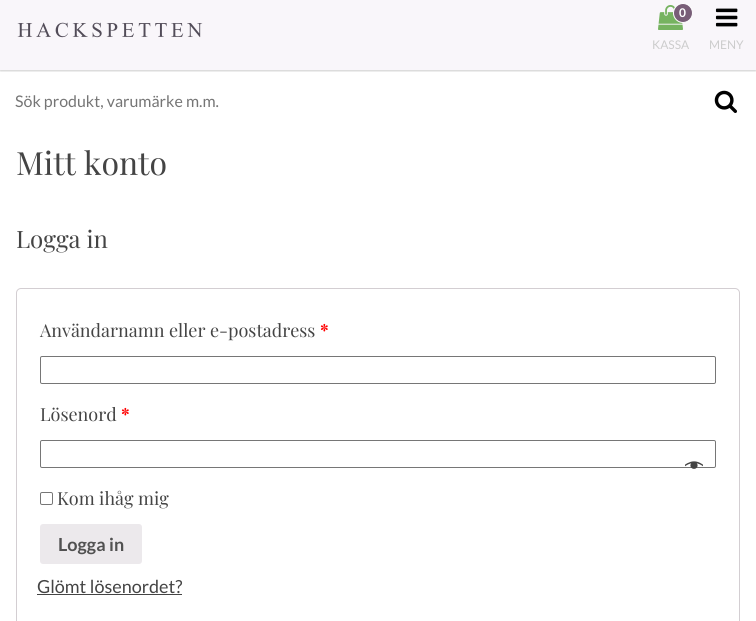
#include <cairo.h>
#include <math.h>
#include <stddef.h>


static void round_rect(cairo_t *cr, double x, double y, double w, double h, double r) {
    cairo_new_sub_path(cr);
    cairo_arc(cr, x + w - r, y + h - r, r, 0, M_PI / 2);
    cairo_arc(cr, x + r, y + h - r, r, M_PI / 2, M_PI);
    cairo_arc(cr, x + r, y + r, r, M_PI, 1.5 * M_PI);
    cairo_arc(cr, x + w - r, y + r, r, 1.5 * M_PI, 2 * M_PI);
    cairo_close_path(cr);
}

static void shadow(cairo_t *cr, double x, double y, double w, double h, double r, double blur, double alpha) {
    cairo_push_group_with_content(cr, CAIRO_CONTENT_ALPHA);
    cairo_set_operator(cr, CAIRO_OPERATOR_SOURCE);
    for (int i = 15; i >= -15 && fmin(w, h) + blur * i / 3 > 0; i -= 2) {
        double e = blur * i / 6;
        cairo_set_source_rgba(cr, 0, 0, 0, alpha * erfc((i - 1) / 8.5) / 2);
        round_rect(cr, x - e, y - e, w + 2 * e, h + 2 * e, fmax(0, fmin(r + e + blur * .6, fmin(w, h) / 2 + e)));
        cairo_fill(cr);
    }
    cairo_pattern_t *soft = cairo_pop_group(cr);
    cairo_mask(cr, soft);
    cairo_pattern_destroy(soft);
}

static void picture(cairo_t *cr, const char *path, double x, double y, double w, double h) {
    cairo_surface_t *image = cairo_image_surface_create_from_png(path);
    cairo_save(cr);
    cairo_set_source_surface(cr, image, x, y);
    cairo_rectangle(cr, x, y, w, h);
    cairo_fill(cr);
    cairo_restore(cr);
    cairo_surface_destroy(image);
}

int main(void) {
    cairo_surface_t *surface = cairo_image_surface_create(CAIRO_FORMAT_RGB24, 756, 621);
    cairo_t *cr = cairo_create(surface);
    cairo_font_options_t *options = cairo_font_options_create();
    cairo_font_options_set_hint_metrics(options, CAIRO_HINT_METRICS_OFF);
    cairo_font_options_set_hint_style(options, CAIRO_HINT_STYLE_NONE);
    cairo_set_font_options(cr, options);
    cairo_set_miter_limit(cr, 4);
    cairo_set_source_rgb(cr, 1, 1, 1);
    cairo_paint(cr);
    cairo_set_source_rgb(cr, 0.973, 0.961, 0.98);
    cairo_rectangle(cr, 0, 0, 756, 70);
    cairo_fill(cr);
    cairo_save(cr);
    cairo_rectangle(cr, 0, 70, 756, 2);
    cairo_clip(cr);
    cairo_set_source_rgb(cr, 0, 0, 0);
    shadow(cr, 0, 1, 756, 70, 0, 1, 0.2);
    cairo_restore(cr);
    picture(cr, "img1.png", 17, 22, 186, 16);
    picture(cr, "img2.png", 658, 5, 25, 25);
    cairo_set_source_rgb(cr, 0.471, 0.365, 0.467);
    cairo_arc(cr, 683, 13, 9.5, 0, 2 * M_PI);
    cairo_fill_preserve(cr);
    cairo_set_source_rgb(cr, 1, 1, 1);
    cairo_set_line_width(cr, 1);
    cairo_stroke(cr);
    cairo_select_font_face(cr, "Lato", CAIRO_FONT_SLANT_NORMAL, CAIRO_FONT_WEIGHT_BOLD);
    cairo_set_font_size(cr, 12);
    cairo_move_to(cr, 679, 17);
    cairo_show_text(cr, "0");
    cairo_select_font_face(cr, "Lato", CAIRO_FONT_SLANT_NORMAL, CAIRO_FONT_WEIGHT_NORMAL);
    cairo_set_source_rgb(cr, 0.8, 0.8, 0.8);
    cairo_move_to(cr, 652, 49);
    cairo_show_text(cr, "KASSA");
    picture(cr, "img3.png", 715, 8, 23, 19);
    cairo_move_to(cr, 709, 49);
    cairo_show_text(cr, "MENY");
    cairo_set_font_size(cr, 16);
    cairo_set_source_rgb(cr, 0.459, 0.459, 0.459);
    cairo_move_to(cr, 15, 107);
    cairo_show_text(cr, "Sök produkt, varumärke m.m.");
    picture(cr, "img4.png", 714, 90, 23, 23);
    cairo_select_font_face(cr, "Playfair Display", CAIRO_FONT_SLANT_NORMAL, CAIRO_FONT_WEIGHT_NORMAL);
    cairo_set_font_size(cr, 32);
    cairo_set_source_rgb(cr, 0.267, 0.267, 0.267);
    cairo_move_to(cr, 16, 175);
    cairo_show_text(cr, "Mitt konto");
    cairo_set_font_size(cr, 24);
    cairo_move_to(cr, 16, 248);
    cairo_show_text(cr, "Logga in");
    round_rect(cr, 16.5, 288.5, 723, 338, 4.5);
    cairo_set_source_rgb(cr, 0.827, 0.808, 0.824);
    cairo_stroke(cr);
    cairo_set_font_size(cr, 18);
    cairo_set_source_rgb(cr, 0.267, 0.267, 0.267);
    cairo_move_to(cr, 40, 337);
    cairo_show_text(cr, "Användarnamn eller e-postadress");
    cairo_select_font_face(cr, "Playfair Display", CAIRO_FONT_SLANT_NORMAL, CAIRO_FONT_WEIGHT_BOLD);
    cairo_set_source_rgb(cr, 1, 0, 0);
    cairo_move_to(cr, 320, 337);
    cairo_show_text(cr, "*");
    round_rect(cr, 40.5, 356.5, 675, 27, 1.5);
    cairo_set_source_rgb(cr, 0.463, 0.463, 0.463);
    cairo_stroke(cr);
    cairo_select_font_face(cr, "Playfair Display", CAIRO_FONT_SLANT_NORMAL, CAIRO_FONT_WEIGHT_NORMAL);
    cairo_set_source_rgb(cr, 0.267, 0.267, 0.267);
    cairo_move_to(cr, 40, 421);
    cairo_show_text(cr, "Lösenord");
    cairo_select_font_face(cr, "Playfair Display", CAIRO_FONT_SLANT_NORMAL, CAIRO_FONT_WEIGHT_BOLD);
    cairo_set_source_rgb(cr, 1, 0, 0);
    cairo_move_to(cr, 121, 421);
    cairo_show_text(cr, "*");
    round_rect(cr, 40.5, 440.5, 675, 27, 1.5);
    cairo_set_source_rgb(cr, 0.463, 0.463, 0.463);
    cairo_stroke(cr);
    picture(cr, "img5.png", 685, 461, 18, 8);
    round_rect(cr, 40.5, 492.5, 12, 12, 1.5);
    cairo_stroke(cr);
    cairo_select_font_face(cr, "Playfair Display", CAIRO_FONT_SLANT_NORMAL, CAIRO_FONT_WEIGHT_NORMAL);
    cairo_set_source_rgb(cr, 0.267, 0.267, 0.267);
    cairo_move_to(cr, 57, 505);
    cairo_show_text(cr, "Kom ihåg mig");
    cairo_set_source_rgb(cr, 0.922, 0.914, 0.922);
    round_rect(cr, 40, 524, 102, 40, 3);
    cairo_fill(cr);
    cairo_select_font_face(cr, "Lato", CAIRO_FONT_SLANT_NORMAL, CAIRO_FONT_WEIGHT_BOLD);
    cairo_set_source_rgb(cr, 0.318, 0.318, 0.318);
    cairo_move_to(cr, 58, 551);
    cairo_show_text(cr, "Logga in");
    cairo_select_font_face(cr, "Lato", CAIRO_FONT_SLANT_NORMAL, CAIRO_FONT_WEIGHT_NORMAL);
    cairo_set_source_rgb(cr, 0.267, 0.267, 0.267);
    cairo_move_to(cr, 37, 593);
    cairo_show_text(cr, "Glömt lösenordet?");
    cairo_rectangle(cr, 37, 594, 145, 1);
    cairo_fill(cr);
    cairo_surface_write_to_png(surface, "page.png");
    cairo_font_options_destroy(options);
    cairo_destroy(cr);
    cairo_surface_destroy(surface);
    return 0;
}
